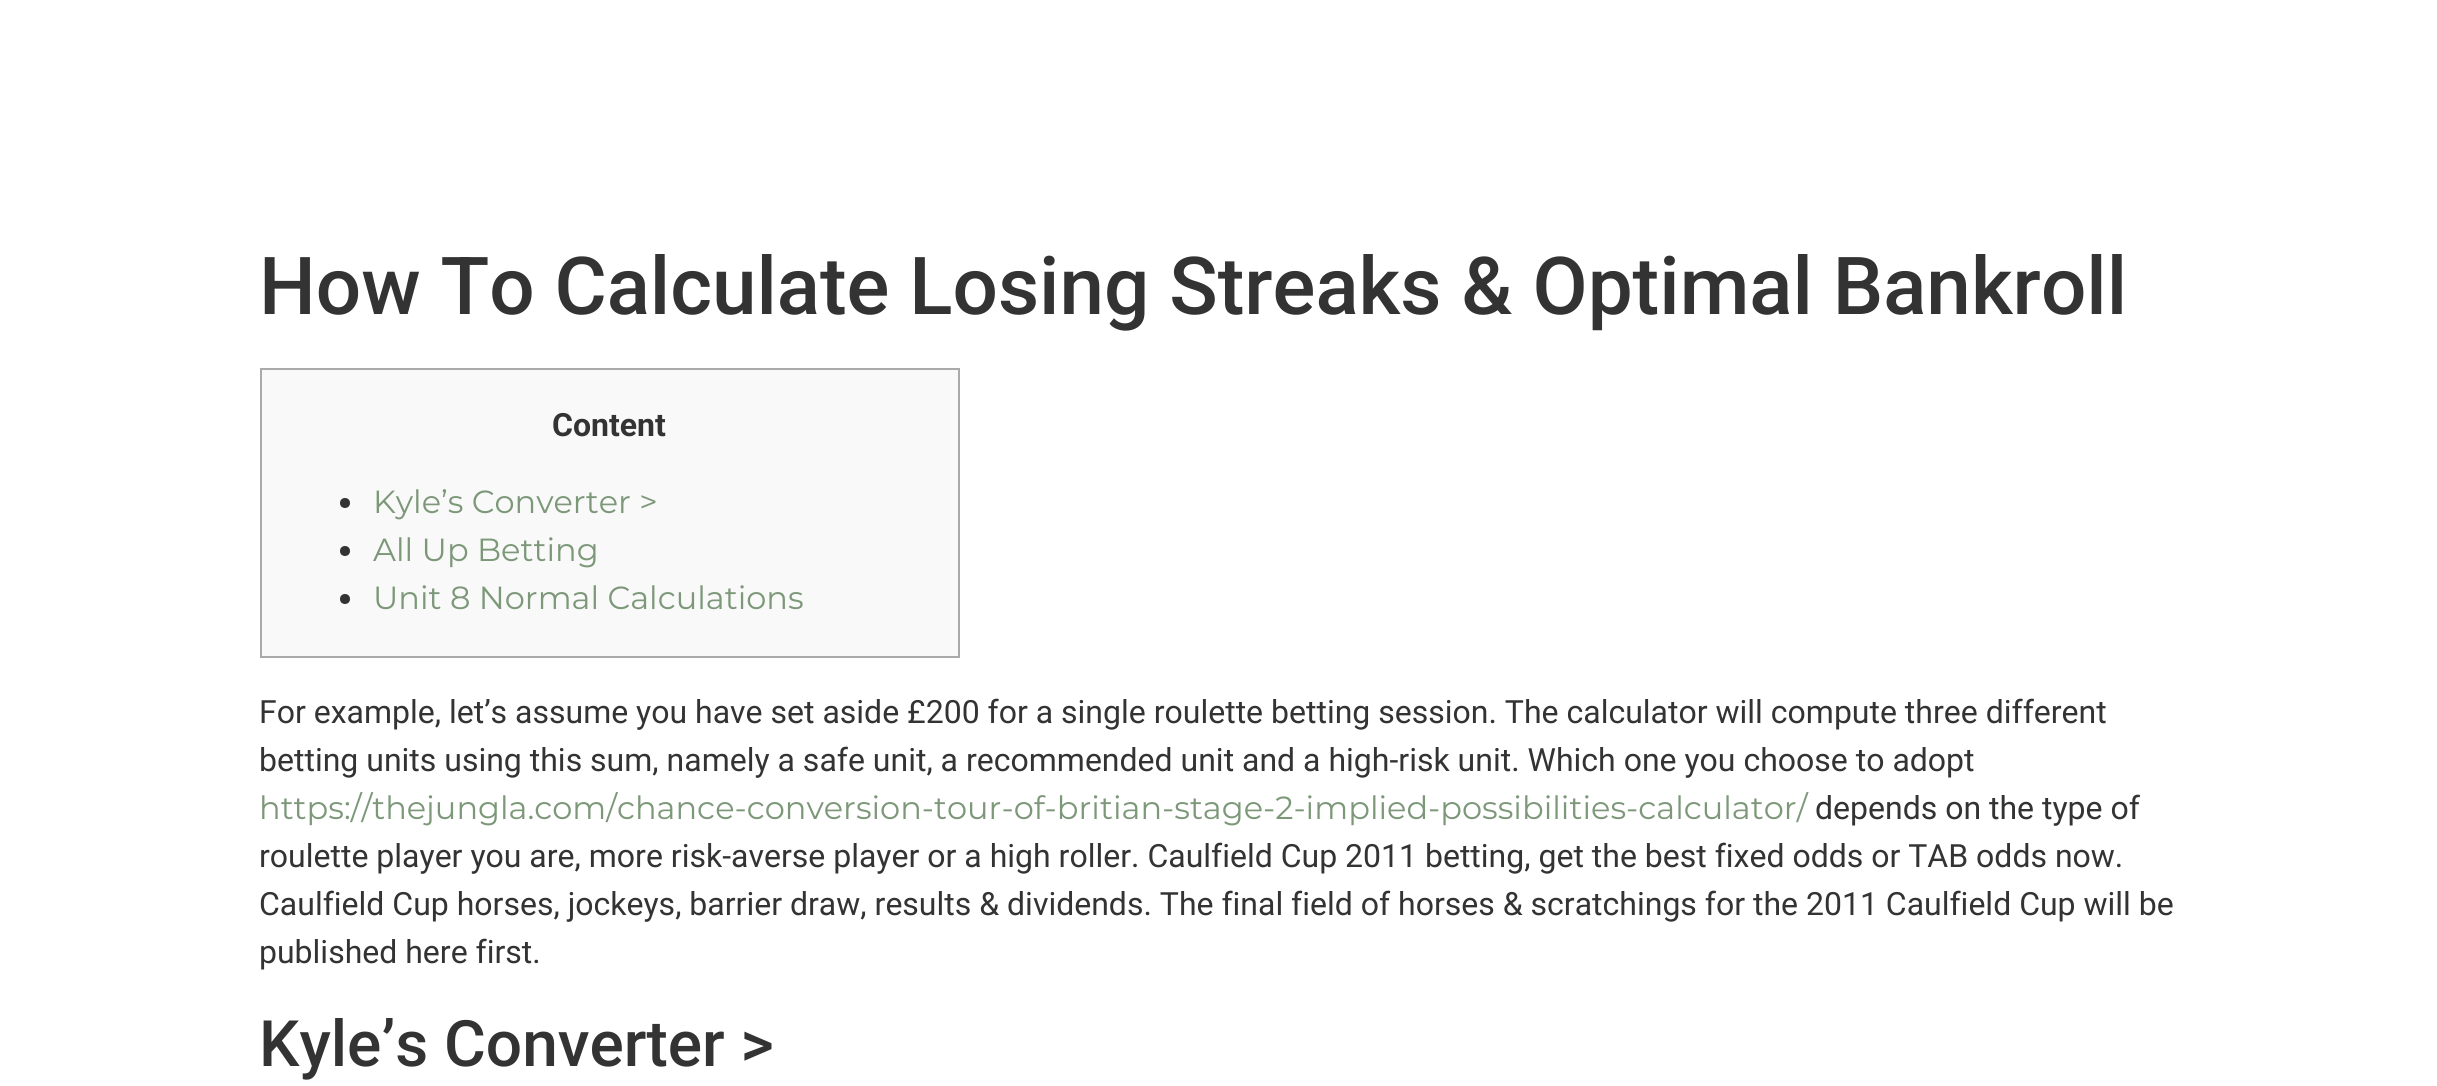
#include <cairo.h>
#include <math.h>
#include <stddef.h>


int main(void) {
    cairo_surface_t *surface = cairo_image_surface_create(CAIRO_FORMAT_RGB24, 2437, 1086);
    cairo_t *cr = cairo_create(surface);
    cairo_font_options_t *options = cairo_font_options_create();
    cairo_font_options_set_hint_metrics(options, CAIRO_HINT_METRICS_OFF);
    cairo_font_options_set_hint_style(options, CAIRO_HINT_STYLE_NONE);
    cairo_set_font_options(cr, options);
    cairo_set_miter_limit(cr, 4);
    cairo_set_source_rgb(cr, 1, 1, 1);
    cairo_paint(cr);
    cairo_select_font_face(cr, "Roboto Medium", CAIRO_FONT_SLANT_NORMAL, CAIRO_FONT_WEIGHT_NORMAL);
    cairo_set_font_size(cr, 80);
    cairo_set_source_rgb(cr, 0.2, 0.2, 0.2);
    cairo_move_to(cr, 259, 314);
    cairo_show_text(cr, "How To Calculate Losing Streaks & Optimal Bankroll");
    cairo_set_source_rgb(cr, 0.976, 0.976, 0.976);
    cairo_rectangle(cr, 261, 369, 698, 288);
    cairo_fill_preserve(cr);
    cairo_set_source_rgb(cr, 0.667, 0.667, 0.667);
    cairo_stroke(cr);
    cairo_select_font_face(cr, "Roboto", CAIRO_FONT_SLANT_NORMAL, CAIRO_FONT_WEIGHT_BOLD);
    cairo_set_font_size(cr, 32);
    cairo_set_source_rgb(cr, 0.2, 0.2, 0.2);
    cairo_move_to(cr, 552, 436);
    cairo_show_text(cr, "Content");
    cairo_new_path(cr);
    cairo_arc(cr, 345, 503, 5, 0, 2 * M_PI);
    cairo_fill(cr);
    cairo_select_font_face(cr, "Montserrat", CAIRO_FONT_SLANT_NORMAL, CAIRO_FONT_WEIGHT_NORMAL);
    cairo_set_source_rgb(cr, 0.486, 0.596, 0.475);
    cairo_move_to(cr, 373, 513);
    cairo_show_text(cr, "Kyle’s Converter >");
    cairo_set_source_rgb(cr, 0.2, 0.2, 0.2);
    cairo_new_path(cr);
    cairo_arc(cr, 345, 551, 5, 0, 2 * M_PI);
    cairo_fill(cr);
    cairo_set_source_rgb(cr, 0.486, 0.596, 0.475);
    cairo_move_to(cr, 373, 561);
    cairo_show_text(cr, "All Up Betting");
    cairo_set_source_rgb(cr, 0.2, 0.2, 0.2);
    cairo_new_path(cr);
    cairo_arc(cr, 345, 599, 5, 0, 2 * M_PI);
    cairo_fill(cr);
    cairo_set_source_rgb(cr, 0.486, 0.596, 0.475);
    cairo_move_to(cr, 373, 609);
    cairo_show_text(cr, "Unit 8 Normal Calculations");
    cairo_select_font_face(cr, "Roboto", CAIRO_FONT_SLANT_NORMAL, CAIRO_FONT_WEIGHT_NORMAL);
    cairo_set_source_rgb(cr, 0.2, 0.2, 0.2);
    cairo_move_to(cr, 259, 723);
    cairo_show_text(cr, "For example, let’s assume you have set aside £200 for a single roulette betting session. The calculator will compute three different");
    cairo_move_to(cr, 259, 771);
    cairo_show_text(cr, "betting units using this sum, namely a safe unit, a recommended unit and a high-risk unit. Which one you choose to adopt");
    cairo_select_font_face(cr, "Montserrat", CAIRO_FONT_SLANT_NORMAL, CAIRO_FONT_WEIGHT_NORMAL);
    cairo_set_source_rgb(cr, 0.486, 0.596, 0.475);
    cairo_move_to(cr, 259, 819);
    cairo_show_text(cr, "https://thejungla.com/chance-conversion-tour-of-britian-stage-2-implied-possibilities-calculator/");
    cairo_select_font_face(cr, "Roboto", CAIRO_FONT_SLANT_NORMAL, CAIRO_FONT_WEIGHT_NORMAL);
    cairo_set_source_rgb(cr, 0.2, 0.2, 0.2);
    cairo_move_to(cr, 1815, 819);
    cairo_show_text(cr, "depends on the type of");
    cairo_move_to(cr, 259, 867);
    cairo_show_text(cr, "roulette player you are, more risk-averse player or a high roller. Caulfield Cup 2011 betting, get the best fixed odds or TAB odds now.");
    cairo_move_to(cr, 259, 915);
    cairo_show_text(cr, "Caulfield Cup horses, jockeys, barrier draw, results & dividends. The final field of horses & scratchings for the 2011 Caulfield Cup will be");
    cairo_move_to(cr, 259, 963);
    cairo_show_text(cr, "published here first.");
    cairo_select_font_face(cr, "Roboto Medium", CAIRO_FONT_SLANT_NORMAL, CAIRO_FONT_WEIGHT_NORMAL);
    cairo_set_font_size(cr, 64);
    cairo_move_to(cr, 259, 1066);
    cairo_show_text(cr, "Kyle’s Converter >");
    cairo_surface_write_to_png(surface, "page.png");
    cairo_font_options_destroy(options);
    cairo_destroy(cr);
    cairo_surface_destroy(surface);
    return 0;
}
